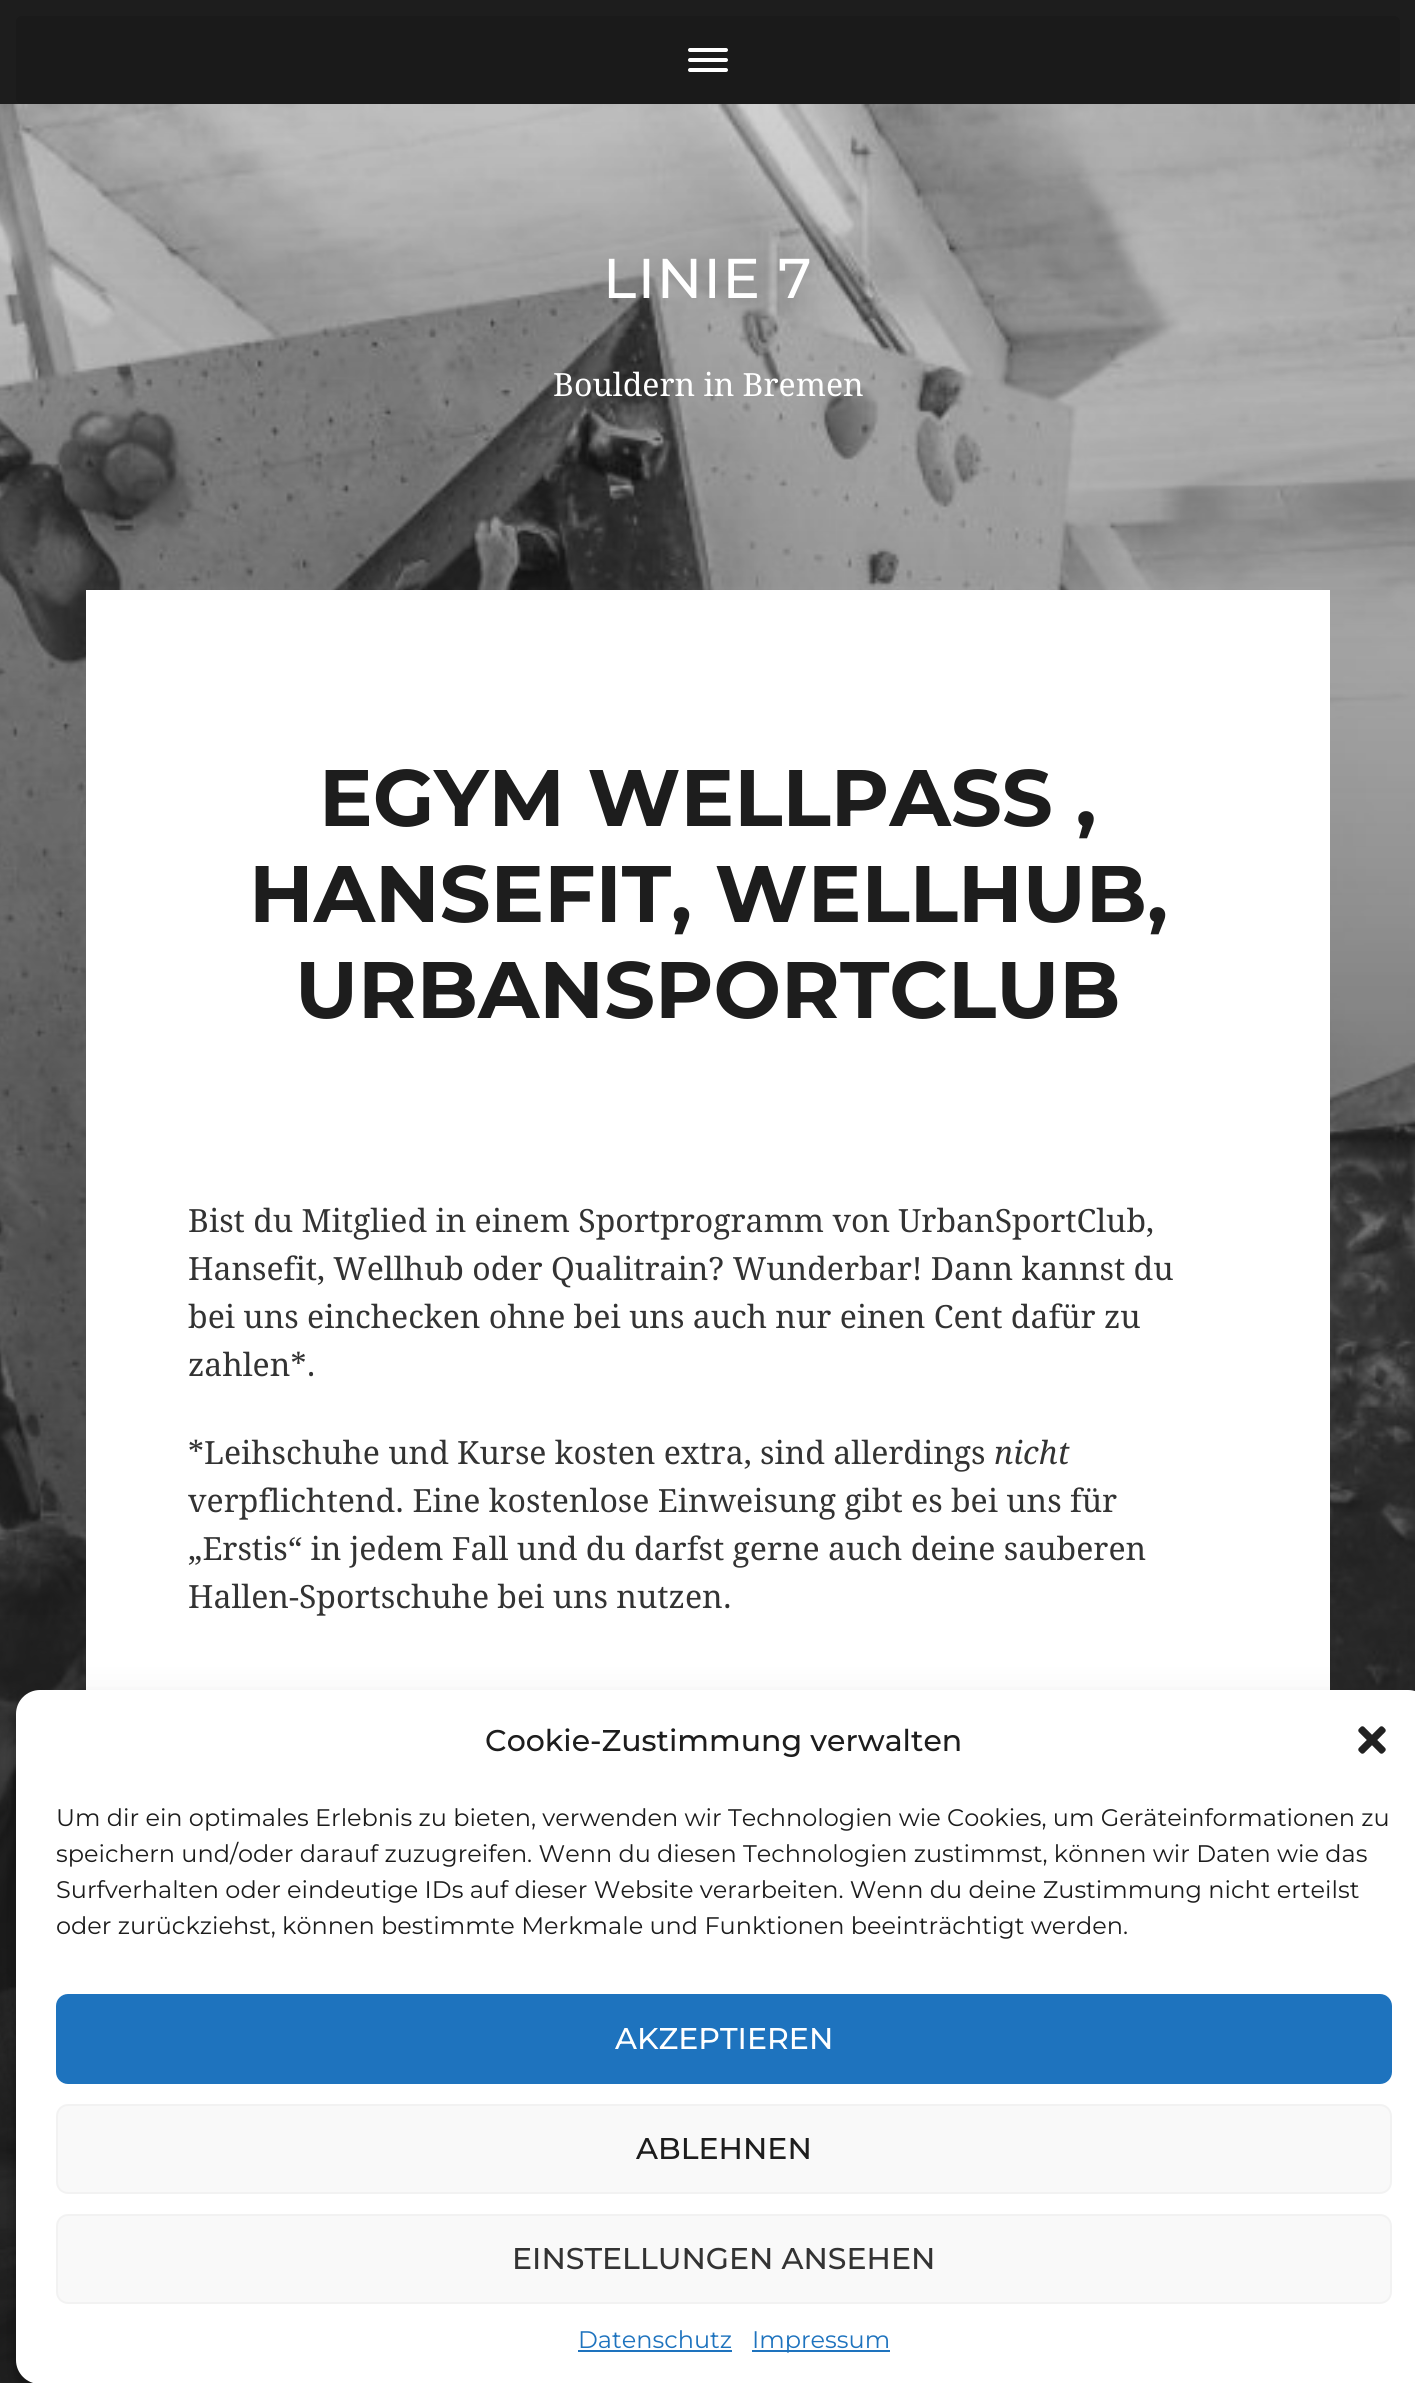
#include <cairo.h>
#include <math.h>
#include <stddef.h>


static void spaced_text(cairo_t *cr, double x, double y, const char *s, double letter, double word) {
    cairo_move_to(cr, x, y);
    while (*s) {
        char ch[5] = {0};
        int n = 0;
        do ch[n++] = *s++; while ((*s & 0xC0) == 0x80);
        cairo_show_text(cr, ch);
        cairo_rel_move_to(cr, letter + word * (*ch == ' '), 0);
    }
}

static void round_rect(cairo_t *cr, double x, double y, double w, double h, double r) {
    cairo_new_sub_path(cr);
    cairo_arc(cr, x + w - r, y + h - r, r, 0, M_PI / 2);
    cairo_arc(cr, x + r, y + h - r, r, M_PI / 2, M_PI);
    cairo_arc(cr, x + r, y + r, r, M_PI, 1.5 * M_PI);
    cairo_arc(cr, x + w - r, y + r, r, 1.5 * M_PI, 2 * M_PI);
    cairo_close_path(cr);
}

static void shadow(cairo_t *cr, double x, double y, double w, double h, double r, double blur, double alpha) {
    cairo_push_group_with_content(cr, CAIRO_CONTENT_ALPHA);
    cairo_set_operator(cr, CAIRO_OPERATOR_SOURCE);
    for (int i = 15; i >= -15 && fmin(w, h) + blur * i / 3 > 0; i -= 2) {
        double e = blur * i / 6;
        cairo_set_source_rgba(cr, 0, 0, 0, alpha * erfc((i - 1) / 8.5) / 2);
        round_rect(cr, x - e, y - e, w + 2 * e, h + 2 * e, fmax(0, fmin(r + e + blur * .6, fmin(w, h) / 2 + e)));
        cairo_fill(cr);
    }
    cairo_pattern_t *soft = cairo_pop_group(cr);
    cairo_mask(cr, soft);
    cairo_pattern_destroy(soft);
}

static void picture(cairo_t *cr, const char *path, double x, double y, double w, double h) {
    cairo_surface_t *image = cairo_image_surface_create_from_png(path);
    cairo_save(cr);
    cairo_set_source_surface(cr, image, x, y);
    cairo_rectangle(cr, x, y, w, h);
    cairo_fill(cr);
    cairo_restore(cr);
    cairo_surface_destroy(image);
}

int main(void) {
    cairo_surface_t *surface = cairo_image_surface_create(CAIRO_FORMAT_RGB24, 1415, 2383);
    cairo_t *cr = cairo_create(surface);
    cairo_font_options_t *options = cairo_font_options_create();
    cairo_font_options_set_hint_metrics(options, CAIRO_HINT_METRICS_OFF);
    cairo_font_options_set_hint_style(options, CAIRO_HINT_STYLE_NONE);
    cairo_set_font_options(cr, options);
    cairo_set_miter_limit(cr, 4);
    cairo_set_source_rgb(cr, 0.114, 0.114, 0.114);
    cairo_paint(cr);
    cairo_set_source_rgb(cr, 0.102, 0.102, 0.102);
    round_rect(cr, 16, 16, 1384, 88, 6);
    cairo_fill(cr);
    cairo_set_source_rgb(cr, 1, 1, 1);
    round_rect(cr, 688, 48, 40, 4, 2);
    cairo_fill(cr);
    round_rect(cr, 688, 58, 40, 4, 2);
    cairo_fill(cr);
    round_rect(cr, 688, 68, 40, 4, 2);
    cairo_fill(cr);
    picture(cr, "img1.png", 0, 104, 1415, 2279);
    cairo_select_font_face(cr, "Montserrat Thin", CAIRO_FONT_SLANT_NORMAL, CAIRO_FONT_WEIGHT_NORMAL);
    cairo_set_font_size(cr, 56);
    spaced_text(cr, 603, 298, "LINIE 7", 1.5, 0);
    cairo_select_font_face(cr, "Droid Serif", CAIRO_FONT_SLANT_NORMAL, CAIRO_FONT_WEIGHT_NORMAL);
    cairo_set_font_size(cr, 32);
    cairo_move_to(cr, 553, 396);
    cairo_show_text(cr, "Bouldern in Bremen");
    cairo_rectangle(cr, 86, 590, 1244, 1100);
    cairo_fill(cr);
    cairo_select_font_face(cr, "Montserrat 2 Thin", CAIRO_FONT_SLANT_NORMAL, CAIRO_FONT_WEIGHT_NORMAL);
    cairo_set_font_size(cr, 80);
    cairo_set_source_rgb(cr, 0.114, 0.114, 0.114);
    cairo_move_to(cr, 319, 826);
    cairo_show_text(cr, "EGYM WELLPASS ,");
    cairo_move_to(cr, 249, 922);
    cairo_show_text(cr, "HANSEFIT, WELLHUB,");
    cairo_move_to(cr, 295, 1018);
    cairo_show_text(cr, "URBANSPORTCLUB");
    cairo_select_font_face(cr, "Droid Serif", CAIRO_FONT_SLANT_NORMAL, CAIRO_FONT_WEIGHT_NORMAL);
    cairo_set_font_size(cr, 32);
    cairo_set_source_rgb(cr, 0.2, 0.2, 0.2);
    cairo_move_to(cr, 188, 1232);
    cairo_show_text(cr, "Bist du Mitglied in einem Sportprogramm von UrbanSportClub,");
    cairo_move_to(cr, 188, 1280);
    cairo_show_text(cr, "Hansefit, Wellhub oder Qualitrain? Wunderbar! Dann kannst du");
    cairo_move_to(cr, 188, 1328);
    cairo_show_text(cr, "bei uns einchecken ohne bei uns auch nur einen Cent dafür zu");
    cairo_move_to(cr, 188, 1376);
    cairo_show_text(cr, "zahlen*.");
    cairo_move_to(cr, 188, 1464);
    cairo_show_text(cr, "*Leihschuhe und Kurse kosten extra, sind allerdings");
    cairo_select_font_face(cr, "Droid Serif", CAIRO_FONT_SLANT_ITALIC, CAIRO_FONT_WEIGHT_NORMAL);
    cairo_move_to(cr, 994, 1464);
    cairo_show_text(cr, "nicht");
    cairo_select_font_face(cr, "Droid Serif", CAIRO_FONT_SLANT_NORMAL, CAIRO_FONT_WEIGHT_NORMAL);
    cairo_move_to(cr, 188, 1512);
    cairo_show_text(cr, "verpflichtend. Eine kostenlose Einweisung gibt es bei uns für");
    cairo_move_to(cr, 188, 1560);
    cairo_show_text(cr, "„Erstis“ in jedem Fall und du darfst gerne auch deine sauberen");
    cairo_move_to(cr, 188, 1608);
    cairo_show_text(cr, "Hallen-Sportschuhe bei uns nutzen.");
    cairo_set_source_rgb(cr, 0, 0, 0);
    shadow(cr, 16, 1702, 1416, 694, 24, 6, 0.23);
    shadow(cr, 16, 1710, 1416, 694, 24, 20, 0.19);
    cairo_set_source_rgb(cr, 1, 1, 1);
    round_rect(cr, 16, 1690, 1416, 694, 24);
    cairo_fill(cr);
    cairo_select_font_face(cr, "Montserrat Thin", CAIRO_FONT_SLANT_NORMAL, CAIRO_FONT_WEIGHT_NORMAL);
    cairo_set_font_size(cr, 30);
    cairo_set_source_rgb(cr, 0.114, 0.114, 0.114);
    cairo_move_to(cr, 485, 1751);
    cairo_show_text(cr, "Cookie-Zustimmung verwalten");
    picture(cr, "img2.png", 1358, 1726, 28, 28);
    cairo_select_font_face(cr, "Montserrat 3 Thin", CAIRO_FONT_SLANT_NORMAL, CAIRO_FONT_WEIGHT_NORMAL);
    cairo_set_font_size(cr, 24);
    cairo_move_to(cr, 56, 1826);
    cairo_show_text(cr, "Um dir ein optimales Erlebnis zu bieten, verwenden wir Technologien wie Cookies, um Geräteinformationen zu");
    cairo_move_to(cr, 56, 1862);
    cairo_show_text(cr, "speichern und/oder darauf zuzugreifen. Wenn du diesen Technologien zustimmst, können wir Daten wie das");
    cairo_move_to(cr, 56, 1898);
    cairo_show_text(cr, "Surfverhalten oder eindeutige IDs auf dieser Website verarbeiten. Wenn du deine Zustimmung nicht erteilst");
    cairo_move_to(cr, 56, 1934);
    cairo_show_text(cr, "oder zurückziehst, können bestimmte Merkmale und Funktionen beeinträchtigt werden.");
    cairo_set_source_rgb(cr, 0.118, 0.451, 0.745);
    round_rect(cr, 57, 1995, 1334, 88, 11);
    cairo_fill_preserve(cr);
    cairo_stroke(cr);
    cairo_select_font_face(cr, "Montserrat Thin", CAIRO_FONT_SLANT_NORMAL, CAIRO_FONT_WEIGHT_NORMAL);
    cairo_set_font_size(cr, 30);
    cairo_set_source_rgb(cr, 1, 1, 1);
    cairo_move_to(cr, 615, 2049);
    cairo_show_text(cr, "AKZEPTIEREN");
    cairo_set_source_rgb(cr, 0.976, 0.976, 0.976);
    round_rect(cr, 57, 2105, 1334, 88, 11);
    cairo_fill_preserve(cr);
    cairo_set_source_rgb(cr, 0.949, 0.949, 0.949);
    cairo_stroke(cr);
    cairo_set_source_rgb(cr, 0.114, 0.114, 0.114);
    cairo_move_to(cr, 636, 2159);
    cairo_show_text(cr, "ABLEHNEN");
    cairo_set_source_rgb(cr, 0.976, 0.976, 0.976);
    round_rect(cr, 57, 2215, 1334, 88, 11);
    cairo_fill_preserve(cr);
    cairo_set_source_rgb(cr, 0.949, 0.949, 0.949);
    cairo_stroke(cr);
    cairo_set_source_rgb(cr, 0.2, 0.2, 0.2);
    cairo_move_to(cr, 512, 2269);
    cairo_show_text(cr, "EINSTELLUNGEN ANSEHEN");
    cairo_select_font_face(cr, "Montserrat 3 Thin", CAIRO_FONT_SLANT_NORMAL, CAIRO_FONT_WEIGHT_NORMAL);
    cairo_set_font_size(cr, 24);
    cairo_set_source_rgb(cr, 0.118, 0.451, 0.745);
    cairo_move_to(cr, 578, 2348);
    cairo_show_text(cr, "Datenschutz");
    cairo_rectangle(cr, 578, 2350, 154, 2);
    cairo_fill(cr);
    cairo_rectangle(cr, 752, 2350, 138, 2);
    cairo_fill(cr);
    cairo_move_to(cr, 752, 2348);
    cairo_show_text(cr, "Impressum");
    cairo_surface_write_to_png(surface, "page.png");
    cairo_font_options_destroy(options);
    cairo_destroy(cr);
    cairo_surface_destroy(surface);
    return 0;
}
